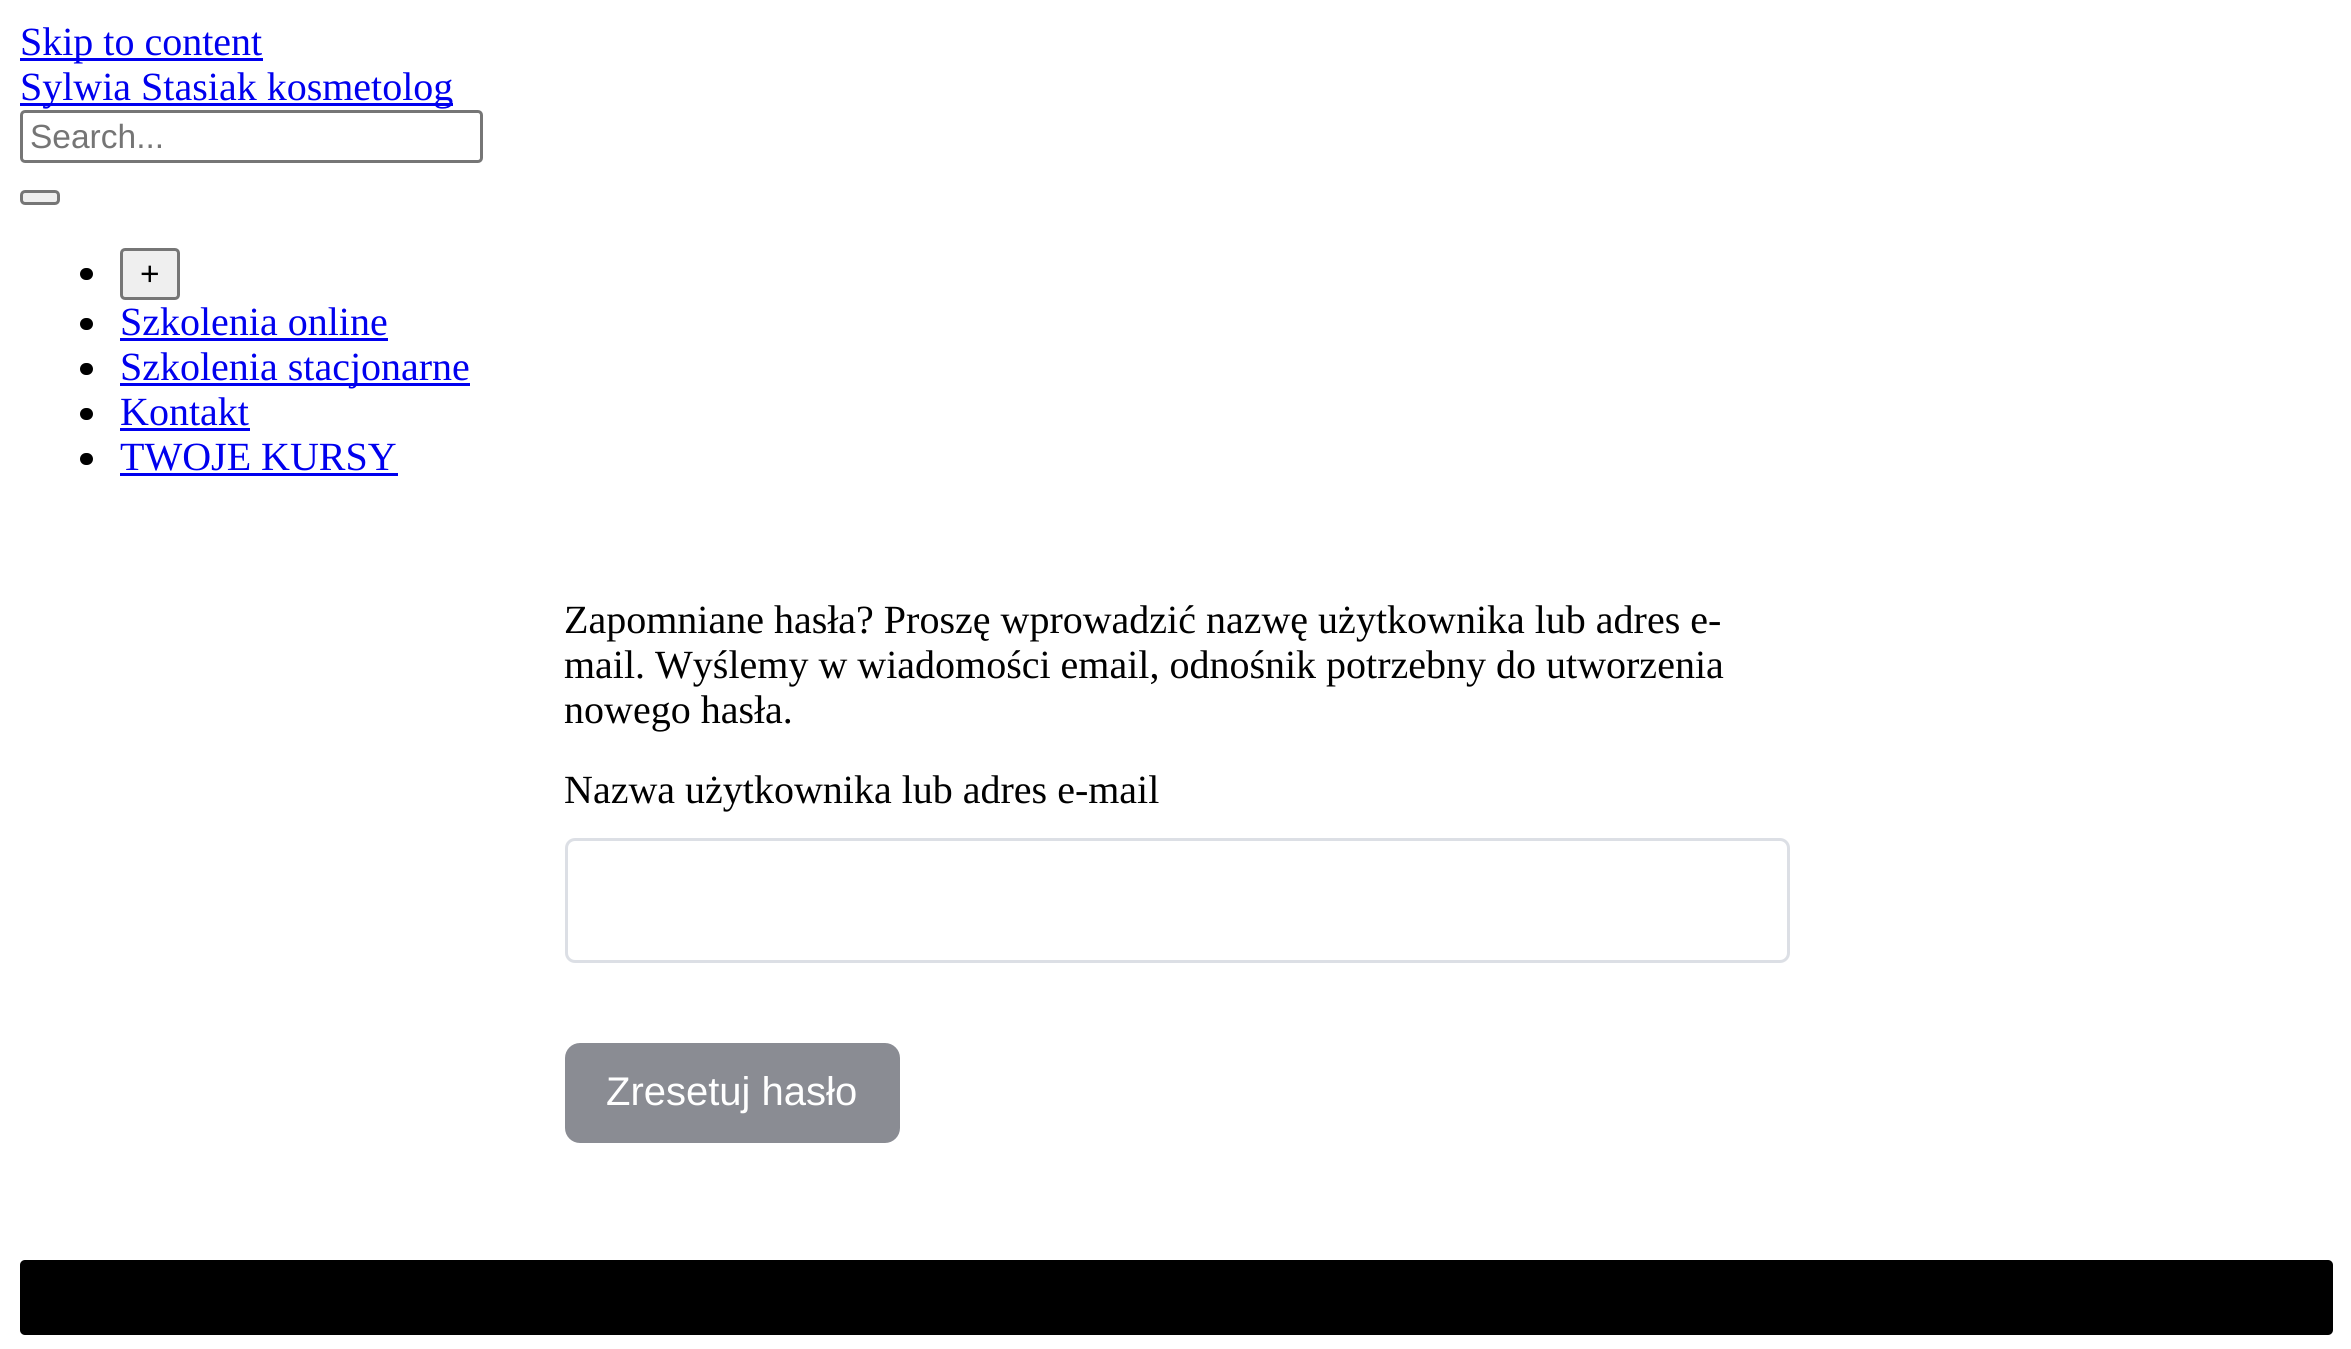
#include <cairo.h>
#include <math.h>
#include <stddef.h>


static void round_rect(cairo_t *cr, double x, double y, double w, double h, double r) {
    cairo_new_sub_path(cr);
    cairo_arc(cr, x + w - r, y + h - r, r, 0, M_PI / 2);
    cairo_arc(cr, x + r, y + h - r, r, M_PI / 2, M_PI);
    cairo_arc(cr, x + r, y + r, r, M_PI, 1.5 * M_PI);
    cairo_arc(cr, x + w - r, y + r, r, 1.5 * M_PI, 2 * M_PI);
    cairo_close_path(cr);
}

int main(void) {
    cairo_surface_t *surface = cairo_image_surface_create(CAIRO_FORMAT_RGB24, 2351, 1349);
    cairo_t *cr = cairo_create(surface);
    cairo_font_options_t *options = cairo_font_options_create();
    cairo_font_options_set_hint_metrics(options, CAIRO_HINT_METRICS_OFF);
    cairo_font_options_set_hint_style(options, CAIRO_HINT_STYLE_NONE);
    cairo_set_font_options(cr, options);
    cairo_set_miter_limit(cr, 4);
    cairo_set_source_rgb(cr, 1, 1, 1);
    cairo_paint(cr);
    cairo_set_source_rgb(cr, 0, 0, 0.933);
    cairo_rectangle(cr, 20, 58, 243, 3);
    cairo_fill(cr);
    cairo_select_font_face(cr, "Liberation Serif", CAIRO_FONT_SLANT_NORMAL, CAIRO_FONT_WEIGHT_NORMAL);
    cairo_set_font_size(cr, 40);
    cairo_move_to(cr, 20, 55);
    cairo_show_text(cr, "Skip to content");
    cairo_rectangle(cr, 20, 103, 433, 3);
    cairo_fill(cr);
    cairo_move_to(cr, 20, 100);
    cairo_show_text(cr, "Sylwia Stasiak kosmetolog");
    round_rect(cr, 21.5, 111.5, 460, 50, 3.5);
    cairo_set_source_rgb(cr, 0.463, 0.463, 0.463);
    cairo_set_line_width(cr, 3);
    cairo_stroke(cr);
    cairo_select_font_face(cr, "Liberation Sans", CAIRO_FONT_SLANT_NORMAL, CAIRO_FONT_WEIGHT_NORMAL);
    cairo_set_font_size(cr, 33.5);
    cairo_set_source_rgb(cr, 0.459, 0.459, 0.459);
    cairo_move_to(cr, 30, 148);
    cairo_show_text(cr, "Search...");
    cairo_set_source_rgb(cr, 0.937, 0.937, 0.937);
    round_rect(cr, 21.5, 191.5, 37, 12, 3.5);
    cairo_fill_preserve(cr);
    cairo_set_source_rgb(cr, 0.463, 0.463, 0.463);
    cairo_stroke(cr);
    cairo_set_source_rgb(cr, 0, 0, 0);
    round_rect(cr, 80, 268, 13, 12, 6);
    cairo_fill(cr);
    cairo_set_source_rgb(cr, 0.937, 0.937, 0.937);
    round_rect(cr, 121.5, 249.5, 57, 49, 3.5);
    cairo_fill_preserve(cr);
    cairo_set_source_rgb(cr, 0.463, 0.463, 0.463);
    cairo_stroke(cr);
    cairo_set_source_rgb(cr, 0, 0, 0);
    cairo_move_to(cr, 140, 285);
    cairo_show_text(cr, "+");
    round_rect(cr, 80, 318, 13, 12, 6);
    cairo_fill(cr);
    cairo_select_font_face(cr, "Liberation Serif", CAIRO_FONT_SLANT_NORMAL, CAIRO_FONT_WEIGHT_NORMAL);
    cairo_set_font_size(cr, 40);
    cairo_set_source_rgb(cr, 0, 0, 0.933);
    cairo_move_to(cr, 120, 335);
    cairo_show_text(cr, "Szkolenia online");
    cairo_rectangle(cr, 120, 338, 268, 3);
    cairo_fill(cr);
    cairo_set_source_rgb(cr, 0, 0, 0);
    round_rect(cr, 80, 363, 13, 12, 6);
    cairo_fill(cr);
    cairo_set_source_rgb(cr, 0, 0, 0.933);
    cairo_rectangle(cr, 120, 383, 350, 3);
    cairo_fill(cr);
    cairo_move_to(cr, 120, 380);
    cairo_show_text(cr, "Szkolenia stacjonarne");
    cairo_set_source_rgb(cr, 0, 0, 0);
    round_rect(cr, 80, 408, 13, 12, 6);
    cairo_fill(cr);
    cairo_set_source_rgb(cr, 0, 0, 0.933);
    cairo_move_to(cr, 120, 425);
    cairo_show_text(cr, "Kontakt");
    cairo_rectangle(cr, 120, 428, 130, 3);
    cairo_fill(cr);
    cairo_set_source_rgb(cr, 0, 0, 0);
    round_rect(cr, 80, 453, 13, 12, 6);
    cairo_fill(cr);
    cairo_set_source_rgb(cr, 0, 0, 0.933);
    cairo_move_to(cr, 120, 470);
    cairo_show_text(cr, "TWOJE KURSY");
    cairo_rectangle(cr, 120, 473, 278, 3);
    cairo_fill(cr);
    cairo_set_source_rgb(cr, 0, 0, 0);
    cairo_move_to(cr, 564, 633);
    cairo_show_text(cr, "Zapomniane hasła? Proszę wprowadzić nazwę użytkownika lub adres e-");
    cairo_move_to(cr, 564, 678);
    cairo_show_text(cr, "mail. Wyślemy w wiadomości email, odnośnik potrzebny do utworzenia");
    cairo_move_to(cr, 564, 723);
    cairo_show_text(cr, "nowego hasła.");
    cairo_move_to(cr, 564, 803);
    cairo_show_text(cr, "Nazwa użytkownika lub adres e-mail");
    round_rect(cr, 566.5, 839.5, 1222, 122, 8.5);
    cairo_set_source_rgb(cr, 0.863, 0.875, 0.898);
    cairo_stroke(cr);
    cairo_set_source_rgb(cr, 0.541, 0.549, 0.576);
    round_rect(cr, 566.5, 1044.5, 332, 97, 13.5);
    cairo_fill_preserve(cr);
    cairo_stroke(cr);
    cairo_select_font_face(cr, "Liberation Sans", CAIRO_FONT_SLANT_NORMAL, CAIRO_FONT_WEIGHT_NORMAL);
    cairo_set_source_rgb(cr, 1, 1, 1);
    cairo_move_to(cr, 606, 1105);
    cairo_show_text(cr, "Zresetuj hasło");
    cairo_set_source_rgb(cr, 0, 0, 0);
    round_rect(cr, 20, 1260, 2313, 75, 5);
    cairo_fill(cr);
    cairo_surface_write_to_png(surface, "page.png");
    cairo_font_options_destroy(options);
    cairo_destroy(cr);
    cairo_surface_destroy(surface);
    return 0;
}
